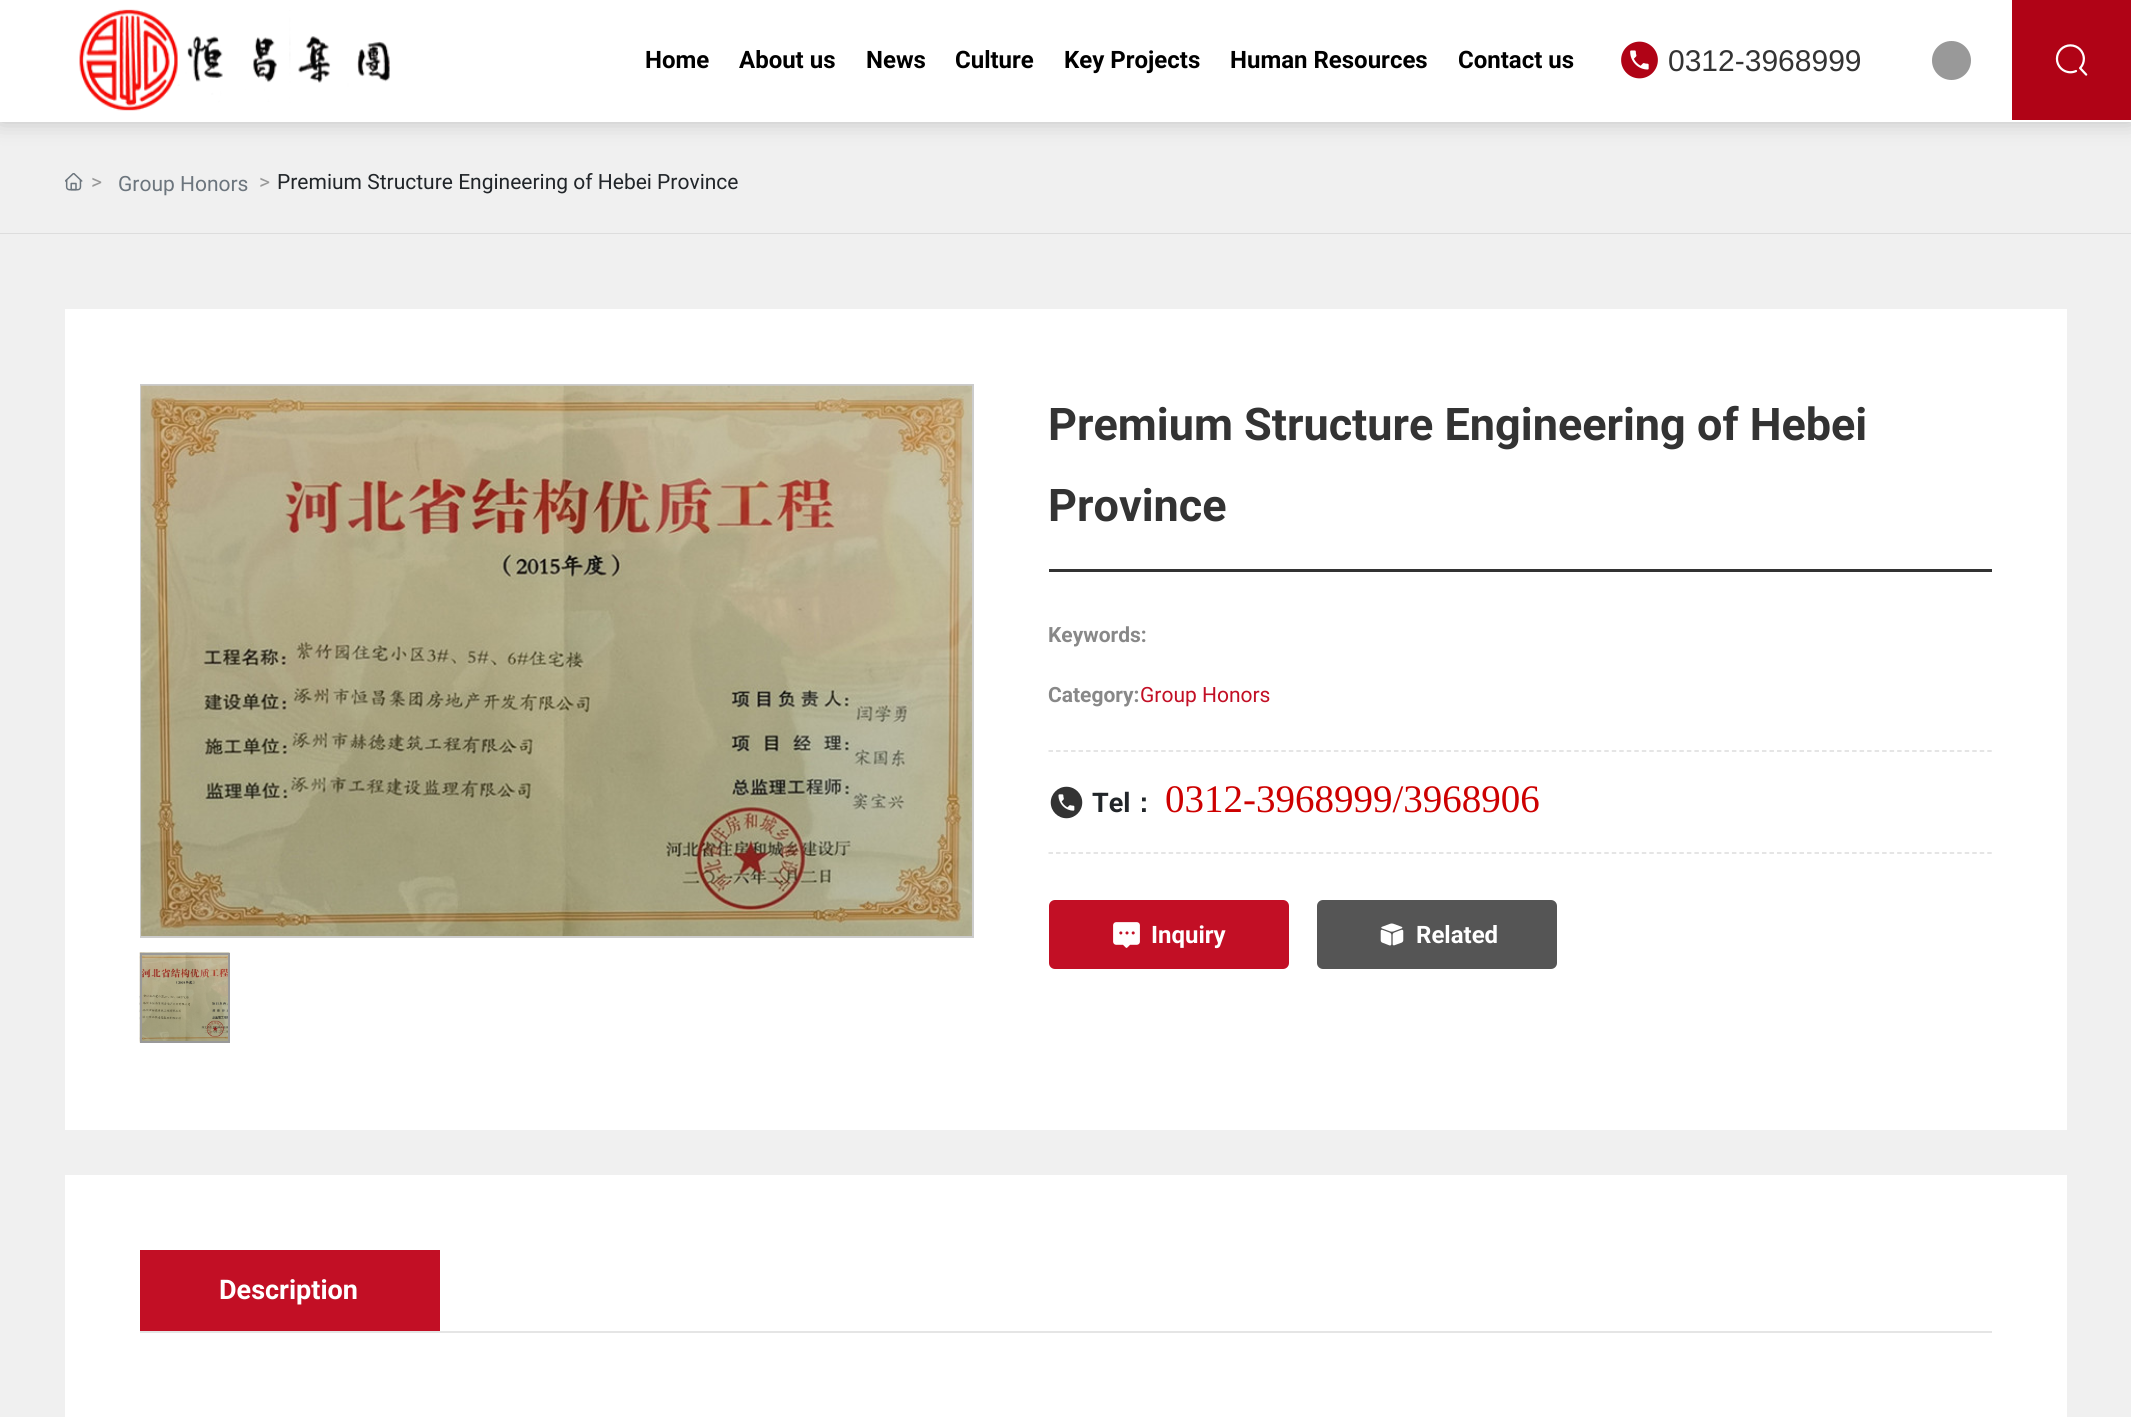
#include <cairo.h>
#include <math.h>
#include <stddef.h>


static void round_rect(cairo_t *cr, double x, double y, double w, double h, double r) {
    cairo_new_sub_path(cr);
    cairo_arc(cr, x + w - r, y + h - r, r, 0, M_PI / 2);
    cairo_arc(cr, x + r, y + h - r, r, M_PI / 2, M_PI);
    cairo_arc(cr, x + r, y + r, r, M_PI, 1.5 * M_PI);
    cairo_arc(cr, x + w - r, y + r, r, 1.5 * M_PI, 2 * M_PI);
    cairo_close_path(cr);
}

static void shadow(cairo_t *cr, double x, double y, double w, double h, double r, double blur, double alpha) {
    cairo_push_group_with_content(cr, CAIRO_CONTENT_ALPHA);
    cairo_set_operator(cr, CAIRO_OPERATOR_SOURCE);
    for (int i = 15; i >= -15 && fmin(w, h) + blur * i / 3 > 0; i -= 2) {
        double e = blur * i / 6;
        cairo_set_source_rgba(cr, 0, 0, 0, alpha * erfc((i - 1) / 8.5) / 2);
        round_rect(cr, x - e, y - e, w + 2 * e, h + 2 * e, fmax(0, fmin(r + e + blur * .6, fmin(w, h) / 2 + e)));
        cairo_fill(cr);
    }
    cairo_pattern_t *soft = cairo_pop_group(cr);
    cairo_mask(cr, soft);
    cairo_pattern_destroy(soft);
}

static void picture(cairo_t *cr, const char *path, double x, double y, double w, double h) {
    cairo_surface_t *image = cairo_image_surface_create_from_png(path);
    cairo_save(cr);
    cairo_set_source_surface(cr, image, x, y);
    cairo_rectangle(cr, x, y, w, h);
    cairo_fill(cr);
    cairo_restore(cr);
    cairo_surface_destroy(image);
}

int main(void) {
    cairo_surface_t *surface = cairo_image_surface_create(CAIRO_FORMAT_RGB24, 2131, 1417);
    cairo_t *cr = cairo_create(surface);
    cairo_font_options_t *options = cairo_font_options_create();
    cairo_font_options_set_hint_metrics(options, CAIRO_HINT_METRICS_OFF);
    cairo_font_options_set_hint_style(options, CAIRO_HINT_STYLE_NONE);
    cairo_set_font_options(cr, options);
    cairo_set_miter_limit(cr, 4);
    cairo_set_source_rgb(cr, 0.941, 0.941, 0.941);
    cairo_paint(cr);
    cairo_set_source_rgb(cr, 0, 0, 0);
    shadow(cr, 0, 0, 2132, 122, 0, 11, 0.2);
    cairo_set_source_rgb(cr, 1, 1, 1);
    cairo_rectangle(cr, 0, 0, 2131, 122);
    cairo_fill(cr);
    picture(cr, "img1.png", 79, 9, 311, 102);
    cairo_select_font_face(cr, "Roboto", CAIRO_FONT_SLANT_NORMAL, CAIRO_FONT_WEIGHT_BOLD);
    cairo_set_font_size(cr, 24);
    cairo_set_source_rgb(cr, 0, 0, 0);
    cairo_move_to(cr, 645, 68);
    cairo_show_text(cr, "Home");
    cairo_move_to(cr, 739, 68);
    cairo_show_text(cr, "About us");
    cairo_move_to(cr, 866, 68);
    cairo_show_text(cr, "News");
    cairo_move_to(cr, 955, 68);
    cairo_show_text(cr, "Culture");
    cairo_move_to(cr, 1064, 68);
    cairo_show_text(cr, "Key Projects");
    cairo_move_to(cr, 1230, 68);
    cairo_show_text(cr, "Human Resources");
    cairo_move_to(cr, 1458, 68);
    cairo_show_text(cr, "Contact us");
    picture(cr, "img2.png", 1621, 41, 37, 38);
    cairo_select_font_face(cr, "Liberation Sans", CAIRO_FONT_SLANT_NORMAL, CAIRO_FONT_WEIGHT_NORMAL);
    cairo_set_font_size(cr, 30);
    cairo_set_source_rgb(cr, 0.2, 0.2, 0.2);
    cairo_move_to(cr, 1668, 71);
    cairo_show_text(cr, "0312-3968999");
    cairo_set_source_rgb(cr, 0.6, 0.6, 0.6);
    cairo_new_path(cr);
    cairo_arc(cr, 1951.5, 60.5, 19.5, 0, 2 * M_PI);
    cairo_fill(cr);
    cairo_set_source_rgb(cr, 0.69, 0.012, 0.086);
    cairo_rectangle(cr, 2012, 0, 119, 120);
    cairo_fill(cr);
    picture(cr, "img3.png", 2055, 44, 33, 32);
    cairo_set_source_rgb(cr, 0.867, 0.867, 0.867);
    cairo_rectangle(cr, 0, 233, 2131, 1);
    cairo_fill(cr);
    picture(cr, "img4.png", 65, 173, 18, 18);
    cairo_select_font_face(cr, "Roboto", CAIRO_FONT_SLANT_NORMAL, CAIRO_FONT_WEIGHT_NORMAL);
    cairo_set_font_size(cr, 21);
    cairo_set_source_rgb(cr, 0.6, 0.6, 0.6);
    cairo_move_to(cr, 91, 189);
    cairo_show_text(cr, ">");
    cairo_set_source_rgb(cr, 0.424, 0.459, 0.49);
    cairo_move_to(cr, 118, 191);
    cairo_show_text(cr, "Group Honors");
    cairo_set_source_rgb(cr, 0.6, 0.6, 0.6);
    cairo_move_to(cr, 259, 189);
    cairo_show_text(cr, ">");
    cairo_set_source_rgb(cr, 0.129, 0.145, 0.161);
    cairo_move_to(cr, 277, 189);
    cairo_show_text(cr, "Premium Structure Engineering of Hebei Province");
    cairo_set_source_rgb(cr, 1, 1, 1);
    cairo_rectangle(cr, 65, 309, 2002, 821);
    cairo_fill(cr);
    cairo_rectangle(cr, 141, 385, 832, 552);
    cairo_set_source_rgb(cr, 0.8, 0.8, 0.8);
    cairo_stroke(cr);
    picture(cr, "img5.png", 141, 385, 831, 551);
    picture(cr, "img6.png", 139, 952, 91, 91);
    cairo_rectangle(cr, 141, 954, 88, 88);
    cairo_set_source_rgb(cr, 0.6, 0.6, 0.6);
    cairo_stroke(cr);
    cairo_set_source_rgb(cr, 0.2, 0.2, 0.2);
    cairo_rectangle(cr, 1049, 569, 943, 3);
    cairo_fill(cr);
    cairo_select_font_face(cr, "Roboto", CAIRO_FONT_SLANT_NORMAL, CAIRO_FONT_WEIGHT_BOLD);
    cairo_set_font_size(cr, 45);
    cairo_move_to(cr, 1048, 440);
    cairo_show_text(cr, "Premium Structure Engineering of Hebei");
    cairo_move_to(cr, 1048, 521);
    cairo_show_text(cr, "Province");
    cairo_set_font_size(cr, 21);
    cairo_set_source_rgb(cr, 0.533, 0.533, 0.533);
    cairo_move_to(cr, 1048, 642);
    cairo_show_text(cr, "Keywords:");
    cairo_move_to(cr, 1048, 702);
    cairo_show_text(cr, "Category:");
    cairo_select_font_face(cr, "Roboto", CAIRO_FONT_SLANT_NORMAL, CAIRO_FONT_WEIGHT_NORMAL);
    cairo_set_source_rgb(cr, 0.761, 0.059, 0.145);
    cairo_move_to(cr, 1140, 702);
    cairo_show_text(cr, "Group Honors");
    cairo_new_path(cr);
    cairo_move_to(cr, 1048.5, 751);
    cairo_line_to(cr, 1992, 751);
    cairo_set_source_rgb(cr, 0.867, 0.867, 0.867);
    cairo_set_line_width(cr, 1.5);
    cairo_set_dash(cr, (double[]){4.5, 3.01}, 2, 0);
    cairo_stroke(cr);
    cairo_new_path(cr);
    cairo_move_to(cr, 1048.5, 853);
    cairo_line_to(cr, 1992, 853);
    cairo_stroke(cr);
    picture(cr, "img7.png", 1050, 786, 33, 33);
    cairo_select_font_face(cr, "Roboto", CAIRO_FONT_SLANT_NORMAL, CAIRO_FONT_WEIGHT_BOLD);
    cairo_set_font_size(cr, 27);
    cairo_set_source_rgb(cr, 0.129, 0.145, 0.161);
    cairo_move_to(cr, 1092, 812);
    cairo_show_text(cr, "Tel");
    cairo_select_font_face(cr, "WenQuanYi Zen Hei", CAIRO_FONT_SLANT_NORMAL, CAIRO_FONT_WEIGHT_BOLD);
    cairo_move_to(cr, 1130, 812);
    cairo_show_text(cr, "：");
    cairo_select_font_face(cr, "Liberation Serif", CAIRO_FONT_SLANT_NORMAL, CAIRO_FONT_WEIGHT_NORMAL);
    cairo_set_font_size(cr, 39);
    cairo_set_source_rgb(cr, 0.804, 0, 0);
    cairo_move_to(cr, 1165, 812);
    cairo_show_text(cr, "0312-3968999/3968906");
    cairo_set_source_rgb(cr, 0.761, 0.059, 0.145);
    round_rect(cr, 1050, 901, 238, 67, 5);
    cairo_fill_preserve(cr);
    cairo_set_line_width(cr, 2);
    cairo_set_dash(cr, NULL, 0, 0);
    cairo_stroke(cr);
    picture(cr, "img8.png", 1113, 922, 27, 26);
    cairo_select_font_face(cr, "Roboto", CAIRO_FONT_SLANT_NORMAL, CAIRO_FONT_WEIGHT_BOLD);
    cairo_set_font_size(cr, 24);
    cairo_set_source_rgb(cr, 1, 1, 1);
    cairo_move_to(cr, 1151, 943);
    cairo_show_text(cr, "Inquiry");
    cairo_set_source_rgb(cr, 0.333, 0.333, 0.333);
    round_rect(cr, 1318, 901, 238, 67, 5);
    cairo_fill_preserve(cr);
    cairo_stroke(cr);
    picture(cr, "img9.png", 1380, 923, 24, 23);
    cairo_set_source_rgb(cr, 1, 1, 1);
    cairo_move_to(cr, 1416, 943);
    cairo_show_text(cr, "Related");
    cairo_rectangle(cr, 65, 1175, 2002, 242);
    cairo_fill(cr);
    cairo_set_source_rgb(cr, 0.898, 0.898, 0.898);
    cairo_rectangle(cr, 140, 1331, 1852, 2);
    cairo_fill(cr);
    cairo_set_source_rgb(cr, 0.761, 0.059, 0.145);
    cairo_rectangle(cr, 140, 1250, 300, 81);
    cairo_fill(cr);
    cairo_set_font_size(cr, 27);
    cairo_set_source_rgb(cr, 1, 1, 1);
    cairo_move_to(cr, 219, 1299);
    cairo_show_text(cr, "Description");
    cairo_surface_write_to_png(surface, "page.png");
    cairo_font_options_destroy(options);
    cairo_destroy(cr);
    cairo_surface_destroy(surface);
    return 0;
}
